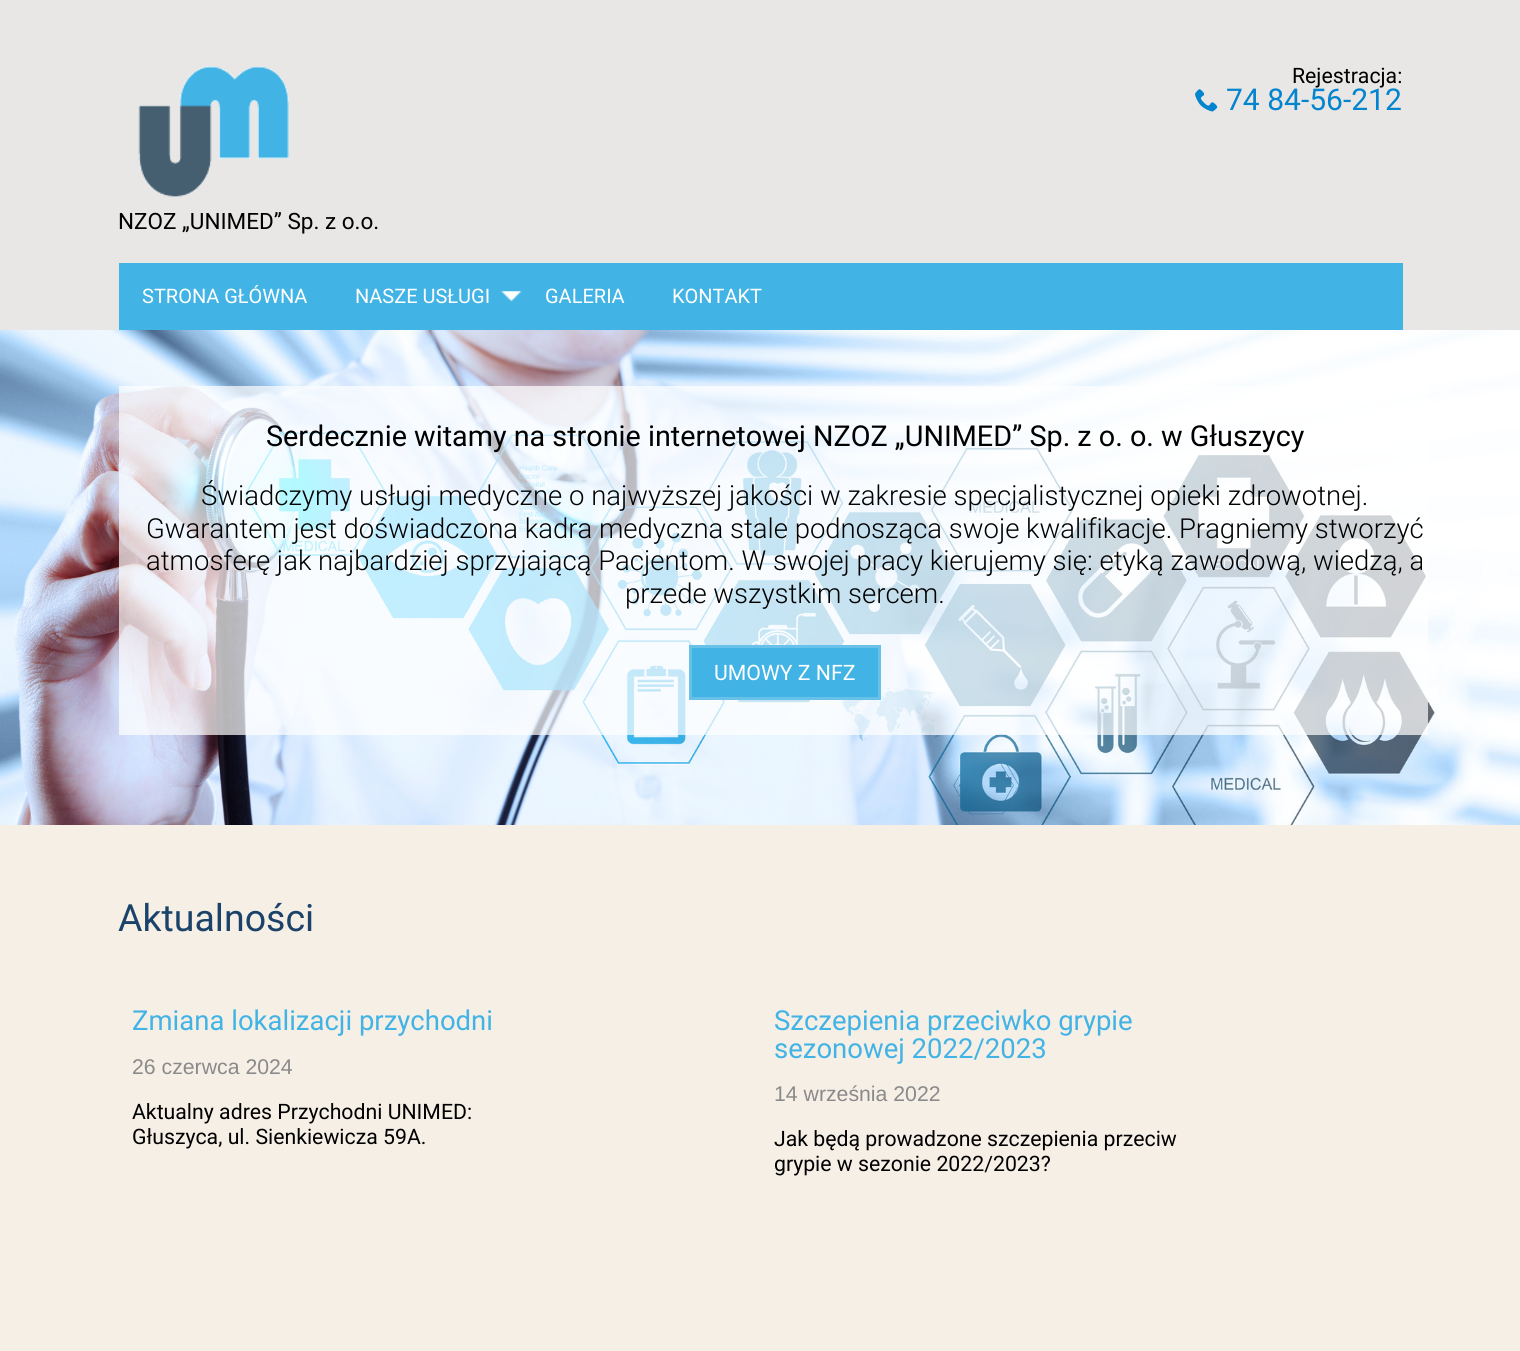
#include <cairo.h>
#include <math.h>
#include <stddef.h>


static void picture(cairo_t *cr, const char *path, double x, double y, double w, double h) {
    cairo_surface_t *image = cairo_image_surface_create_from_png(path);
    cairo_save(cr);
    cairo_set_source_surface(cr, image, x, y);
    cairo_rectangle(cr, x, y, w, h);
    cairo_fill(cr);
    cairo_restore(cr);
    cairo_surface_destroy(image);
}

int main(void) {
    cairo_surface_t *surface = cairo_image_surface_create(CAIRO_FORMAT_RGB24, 1520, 1351);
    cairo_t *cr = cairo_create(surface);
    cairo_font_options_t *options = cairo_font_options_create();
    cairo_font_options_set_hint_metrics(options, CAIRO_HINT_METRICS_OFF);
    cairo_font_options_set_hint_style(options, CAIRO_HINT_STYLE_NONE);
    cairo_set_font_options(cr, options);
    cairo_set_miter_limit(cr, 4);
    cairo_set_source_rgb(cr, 0.91, 0.906, 0.898);
    cairo_paint(cr);
    cairo_select_font_face(cr, "Roboto", CAIRO_FONT_SLANT_NORMAL, CAIRO_FONT_WEIGHT_NORMAL);
    cairo_set_font_size(cr, 21.25);
    cairo_set_source_rgb(cr, 0, 0, 0);
    cairo_move_to(cr, 1292, 83);
    cairo_show_text(cr, "Rejestracja:");
    picture(cr, "img1.png", 1195, 89, 23, 23);
    cairo_set_font_size(cr, 30);
    cairo_set_source_rgb(cr, 0.012, 0.518, 0.808);
    cairo_move_to(cr, 1226, 110);
    cairo_show_text(cr, "74 84-56-212");
    picture(cr, "img2.png", 138, 66, 151, 131);
    cairo_set_font_size(cr, 22.5);
    cairo_set_source_rgb(cr, 0, 0, 0);
    cairo_move_to(cr, 118, 229);
    cairo_show_text(cr, "NZOZ „UNIMED” Sp. z o.o.");
    cairo_set_source_rgb(cr, 0.259, 0.702, 0.898);
    cairo_rectangle(cr, 119, 263, 1284, 67);
    cairo_fill(cr);
    cairo_set_font_size(cr, 20);
    cairo_set_source_rgb(cr, 1, 1, 1);
    cairo_move_to(cr, 142, 303);
    cairo_show_text(cr, "STRONA GŁÓWNA");
    picture(cr, "img3.png", 501, 291, 21, 11);
    cairo_move_to(cr, 355, 303);
    cairo_show_text(cr, "NASZE USŁUGI");
    cairo_move_to(cr, 545, 303);
    cairo_show_text(cr, "GALERIA");
    cairo_move_to(cr, 672, 303);
    cairo_show_text(cr, "KONTAKT");
    picture(cr, "img4.png", 0, 330, 1520, 495);
    cairo_set_source_rgba(cr, 1, 1, 1, 0.7);
    cairo_rectangle(cr, 119, 386, 1309, 349);
    cairo_fill(cr);
    cairo_set_font_size(cr, 28.75);
    cairo_set_source_rgb(cr, 0, 0, 0);
    cairo_move_to(cr, 266, 446);
    cairo_show_text(cr, "Serdecznie witamy na stronie internetowej NZOZ „UNIMED” Sp. z o. o. w Głuszycy");
    cairo_select_font_face(cr, "Roboto Light", CAIRO_FONT_SLANT_NORMAL, CAIRO_FONT_WEIGHT_NORMAL);
    cairo_set_font_size(cr, 27.5);
    cairo_move_to(cr, 201, 505);
    cairo_show_text(cr, "Świadczymy usługi medyczne o najwyższej jakości w zakresie specjalistycznej opieki zdrowotnej.");
    cairo_move_to(cr, 146, 538);
    cairo_show_text(cr, "Gwarantem jest doświadczona kadra medyczna stale podnosząca swoje kwalifikacje. Pragniemy stworzyć");
    cairo_move_to(cr, 146, 570);
    cairo_show_text(cr, "atmosferę jak najbardziej sprzyjającą Pacjentom. W swojej pracy kierujemy się: etyką zawodową, wiedzą, a");
    cairo_move_to(cr, 625, 603);
    cairo_show_text(cr, "przede wszystkim sercem.");
    cairo_set_source_rgb(cr, 0.259, 0.702, 0.898);
    cairo_rectangle(cr, 690.5, 646.5, 189, 52);
    cairo_fill_preserve(cr);
    cairo_set_source_rgb(cr, 0.408, 0.757, 0.91);
    cairo_set_line_width(cr, 3);
    cairo_stroke(cr);
    cairo_select_font_face(cr, "Roboto", CAIRO_FONT_SLANT_NORMAL, CAIRO_FONT_WEIGHT_NORMAL);
    cairo_set_font_size(cr, 21.25);
    cairo_set_source_rgb(cr, 1, 1, 1);
    cairo_move_to(cr, 714, 680);
    cairo_show_text(cr, "UMOWY Z NFZ");
    cairo_set_source_rgb(cr, 0.961, 0.937, 0.902);
    cairo_rectangle(cr, 0, 825, 1520, 526);
    cairo_fill(cr);
    cairo_set_font_size(cr, 37.5);
    cairo_set_source_rgb(cr, 0.106, 0.259, 0.412);
    cairo_move_to(cr, 118, 931);
    cairo_show_text(cr, "Aktualności");
    cairo_set_font_size(cr, 27.5);
    cairo_set_source_rgb(cr, 0.259, 0.702, 0.898);
    cairo_move_to(cr, 132, 1030);
    cairo_show_text(cr, "Zmiana lokalizacji przychodni");
    cairo_select_font_face(cr, "Liberation Sans", CAIRO_FONT_SLANT_NORMAL, CAIRO_FONT_WEIGHT_NORMAL);
    cairo_set_font_size(cr, 21.25);
    cairo_set_source_rgb(cr, 0.541, 0.541, 0.541);
    cairo_move_to(cr, 132, 1074);
    cairo_show_text(cr, "26 czerwca 2024");
    cairo_select_font_face(cr, "Roboto", CAIRO_FONT_SLANT_NORMAL, CAIRO_FONT_WEIGHT_NORMAL);
    cairo_set_source_rgb(cr, 0, 0, 0);
    cairo_move_to(cr, 132, 1119);
    cairo_show_text(cr, "Aktualny adres Przychodni UNIMED:");
    cairo_move_to(cr, 132, 1144);
    cairo_show_text(cr, "Głuszyca, ul. Sienkiewicza 59A.");
    cairo_set_font_size(cr, 27.5);
    cairo_set_source_rgb(cr, 0.259, 0.702, 0.898);
    cairo_move_to(cr, 774, 1030);
    cairo_show_text(cr, "Szczepienia przeciwko grypie");
    cairo_move_to(cr, 774, 1058);
    cairo_show_text(cr, "sezonowej 2022/2023");
    cairo_select_font_face(cr, "Liberation Sans", CAIRO_FONT_SLANT_NORMAL, CAIRO_FONT_WEIGHT_NORMAL);
    cairo_set_font_size(cr, 21.25);
    cairo_set_source_rgb(cr, 0.541, 0.541, 0.541);
    cairo_move_to(cr, 774, 1101);
    cairo_show_text(cr, "14 września 2022");
    cairo_select_font_face(cr, "Roboto", CAIRO_FONT_SLANT_NORMAL, CAIRO_FONT_WEIGHT_NORMAL);
    cairo_set_source_rgb(cr, 0, 0, 0);
    cairo_move_to(cr, 774, 1146);
    cairo_show_text(cr, "Jak będą prowadzone szczepienia przeciw");
    cairo_move_to(cr, 774, 1171);
    cairo_show_text(cr, "grypie w sezonie 2022/2023?");
    cairo_surface_write_to_png(surface, "page.png");
    cairo_font_options_destroy(options);
    cairo_destroy(cr);
    cairo_surface_destroy(surface);
    return 0;
}
